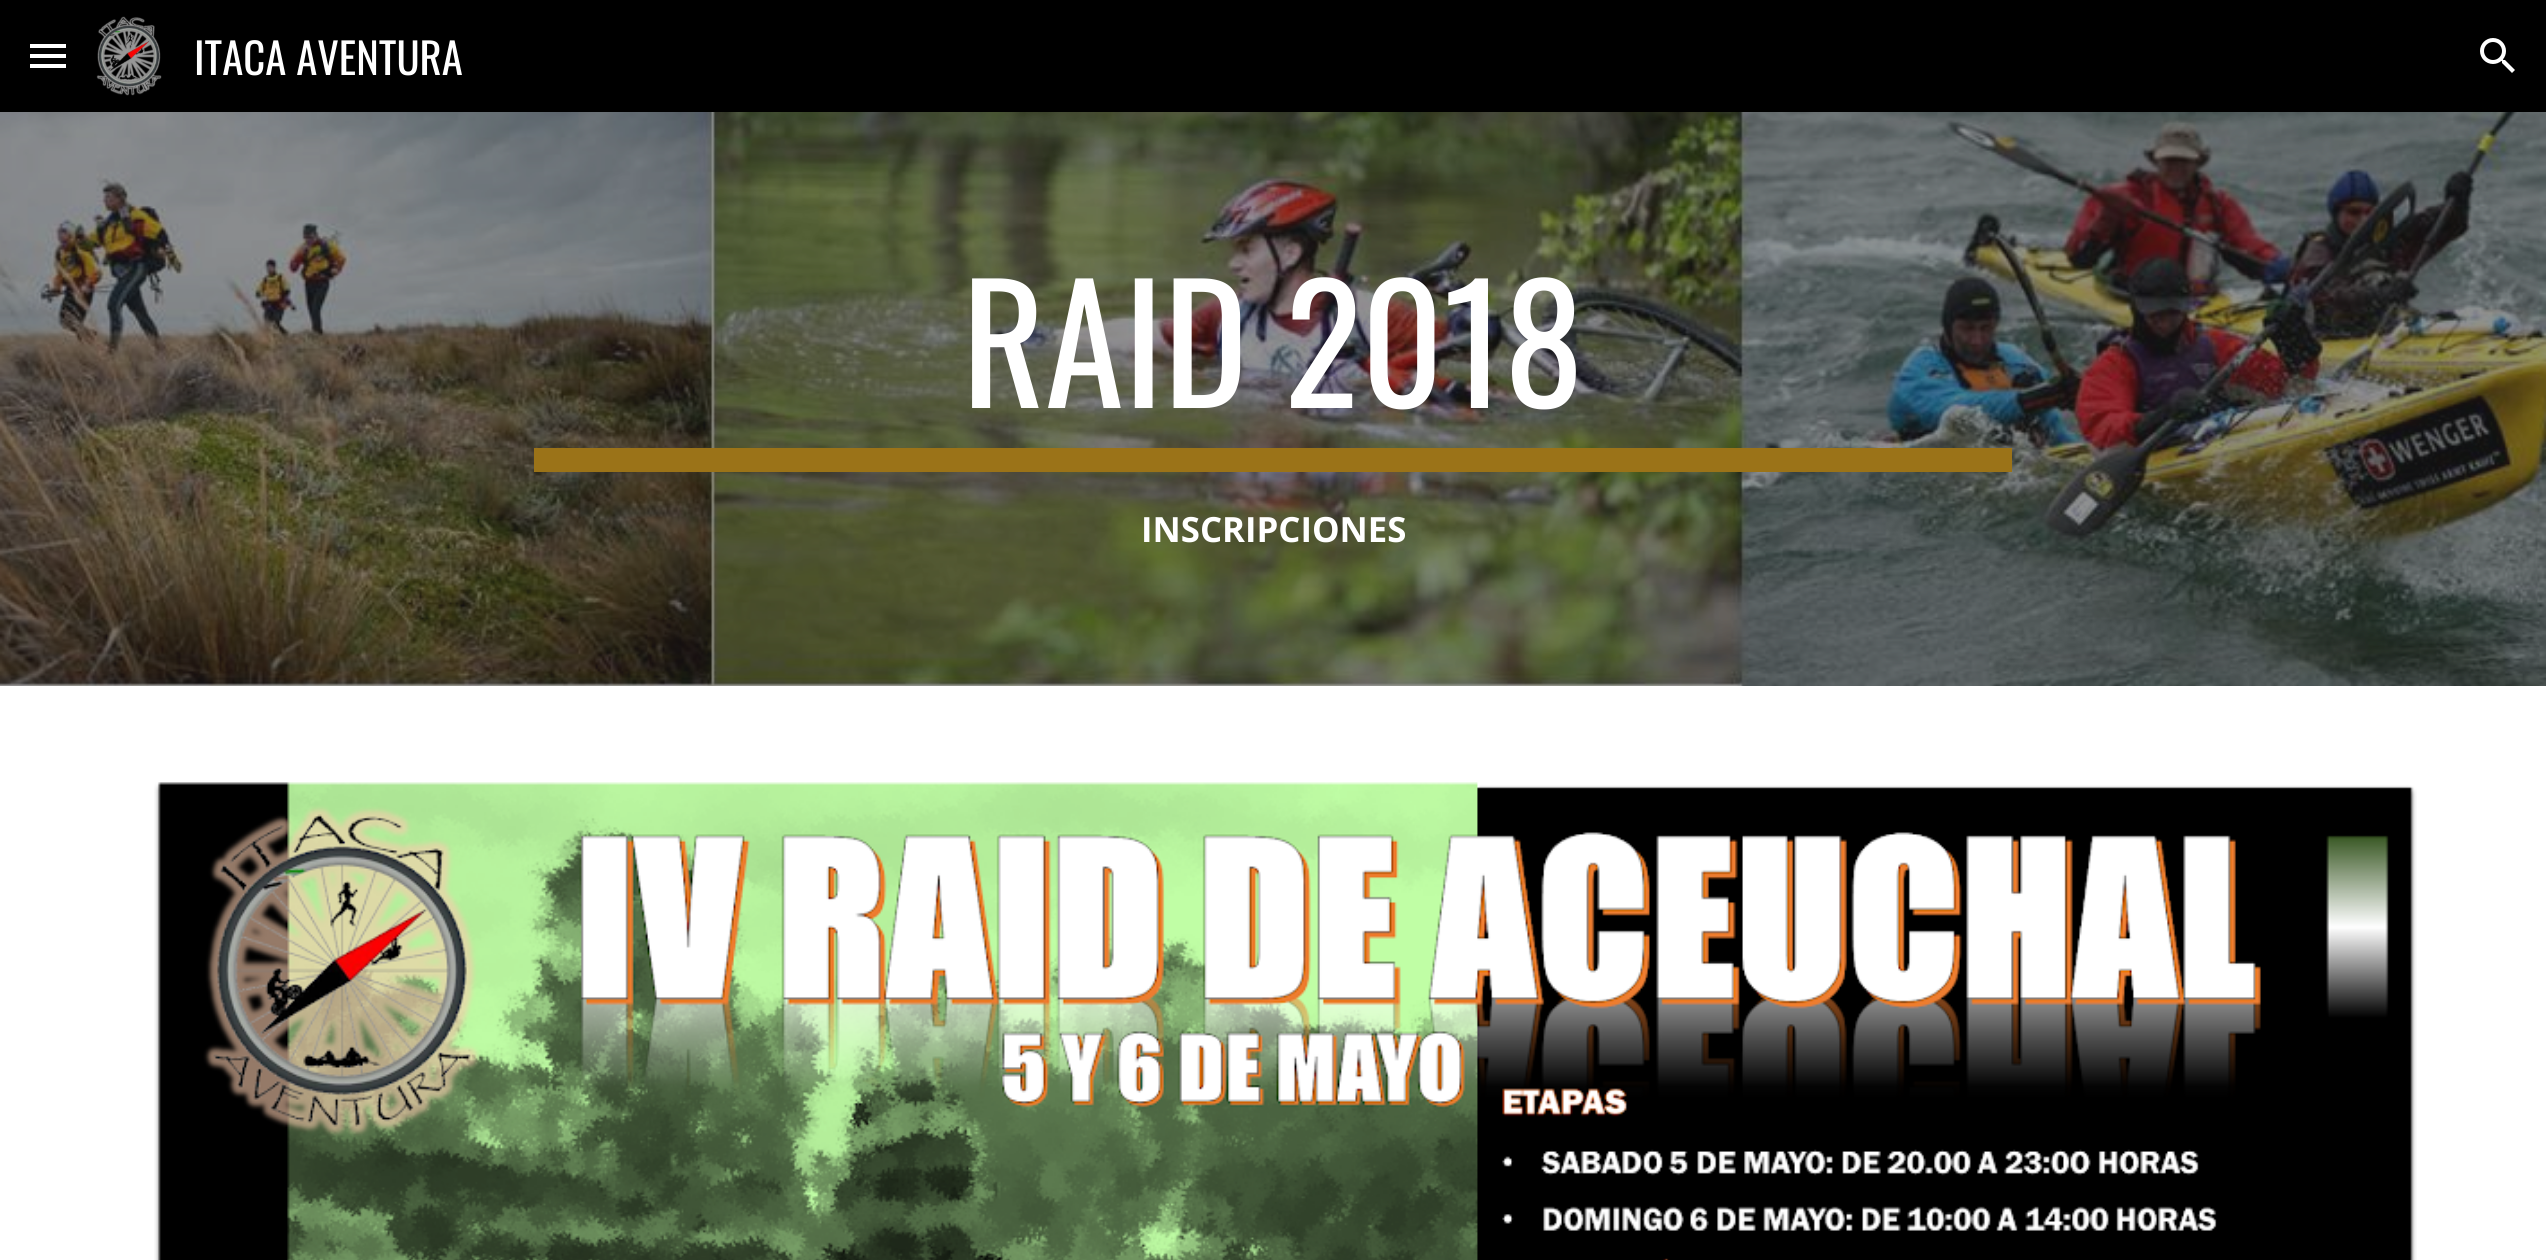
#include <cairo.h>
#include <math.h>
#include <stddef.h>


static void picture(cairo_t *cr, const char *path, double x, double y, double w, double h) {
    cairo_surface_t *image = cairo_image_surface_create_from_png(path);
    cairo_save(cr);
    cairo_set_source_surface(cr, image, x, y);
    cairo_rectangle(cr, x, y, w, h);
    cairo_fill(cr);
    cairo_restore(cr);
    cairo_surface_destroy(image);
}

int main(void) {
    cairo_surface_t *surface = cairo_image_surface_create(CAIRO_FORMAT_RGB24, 2546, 1260);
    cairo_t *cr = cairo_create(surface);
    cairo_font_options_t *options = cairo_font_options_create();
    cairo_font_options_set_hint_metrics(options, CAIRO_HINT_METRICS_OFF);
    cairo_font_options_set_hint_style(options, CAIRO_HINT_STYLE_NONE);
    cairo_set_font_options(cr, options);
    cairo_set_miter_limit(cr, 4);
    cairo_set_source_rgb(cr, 1, 1, 1);
    cairo_paint(cr);
    cairo_set_source_rgb(cr, 0, 0, 0);
    cairo_rectangle(cr, 0, 0, 2546, 112);
    cairo_fill(cr);
    cairo_set_source_rgb(cr, 1, 1, 1);
    cairo_rectangle(cr, 30, 44, 36, 4);
    cairo_fill(cr);
    cairo_rectangle(cr, 30, 54, 36, 4);
    cairo_fill(cr);
    cairo_rectangle(cr, 30, 64, 36, 4);
    cairo_fill(cr);
    picture(cr, "img1.png", 96, 16, 66, 80);
    cairo_select_font_face(cr, "Oswald", CAIRO_FONT_SLANT_NORMAL, CAIRO_FONT_WEIGHT_NORMAL);
    cairo_set_font_size(cr, 42.75);
    cairo_move_to(cr, 194, 75);
    cairo_show_text(cr, "ITACA AVENTURA");
    picture(cr, "img2.png", 2480, 38, 35, 35);
    picture(cr, "img3.png", 0, 112, 2546, 574);
    cairo_set_font_size(cr, 160);
    cairo_move_to(cr, 962, 408);
    cairo_show_text(cr, "RAID 2018");
    cairo_set_source_rgb(cr, 0.608, 0.451, 0.094);
    cairo_rectangle(cr, 534, 448, 1478, 24);
    cairo_fill(cr);
    cairo_select_font_face(cr, "Open Sans", CAIRO_FONT_SLANT_NORMAL, CAIRO_FONT_WEIGHT_BOLD);
    cairo_set_font_size(cr, 34.75);
    cairo_set_source_rgb(cr, 1, 1, 1);
    cairo_move_to(cr, 1141, 542);
    cairo_show_text(cr, "INSCRIPCIONES");
    picture(cr, "img4.png", 154, 782, 2263, 478);
    cairo_surface_write_to_png(surface, "page.png");
    cairo_font_options_destroy(options);
    cairo_destroy(cr);
    cairo_surface_destroy(surface);
    return 0;
}
